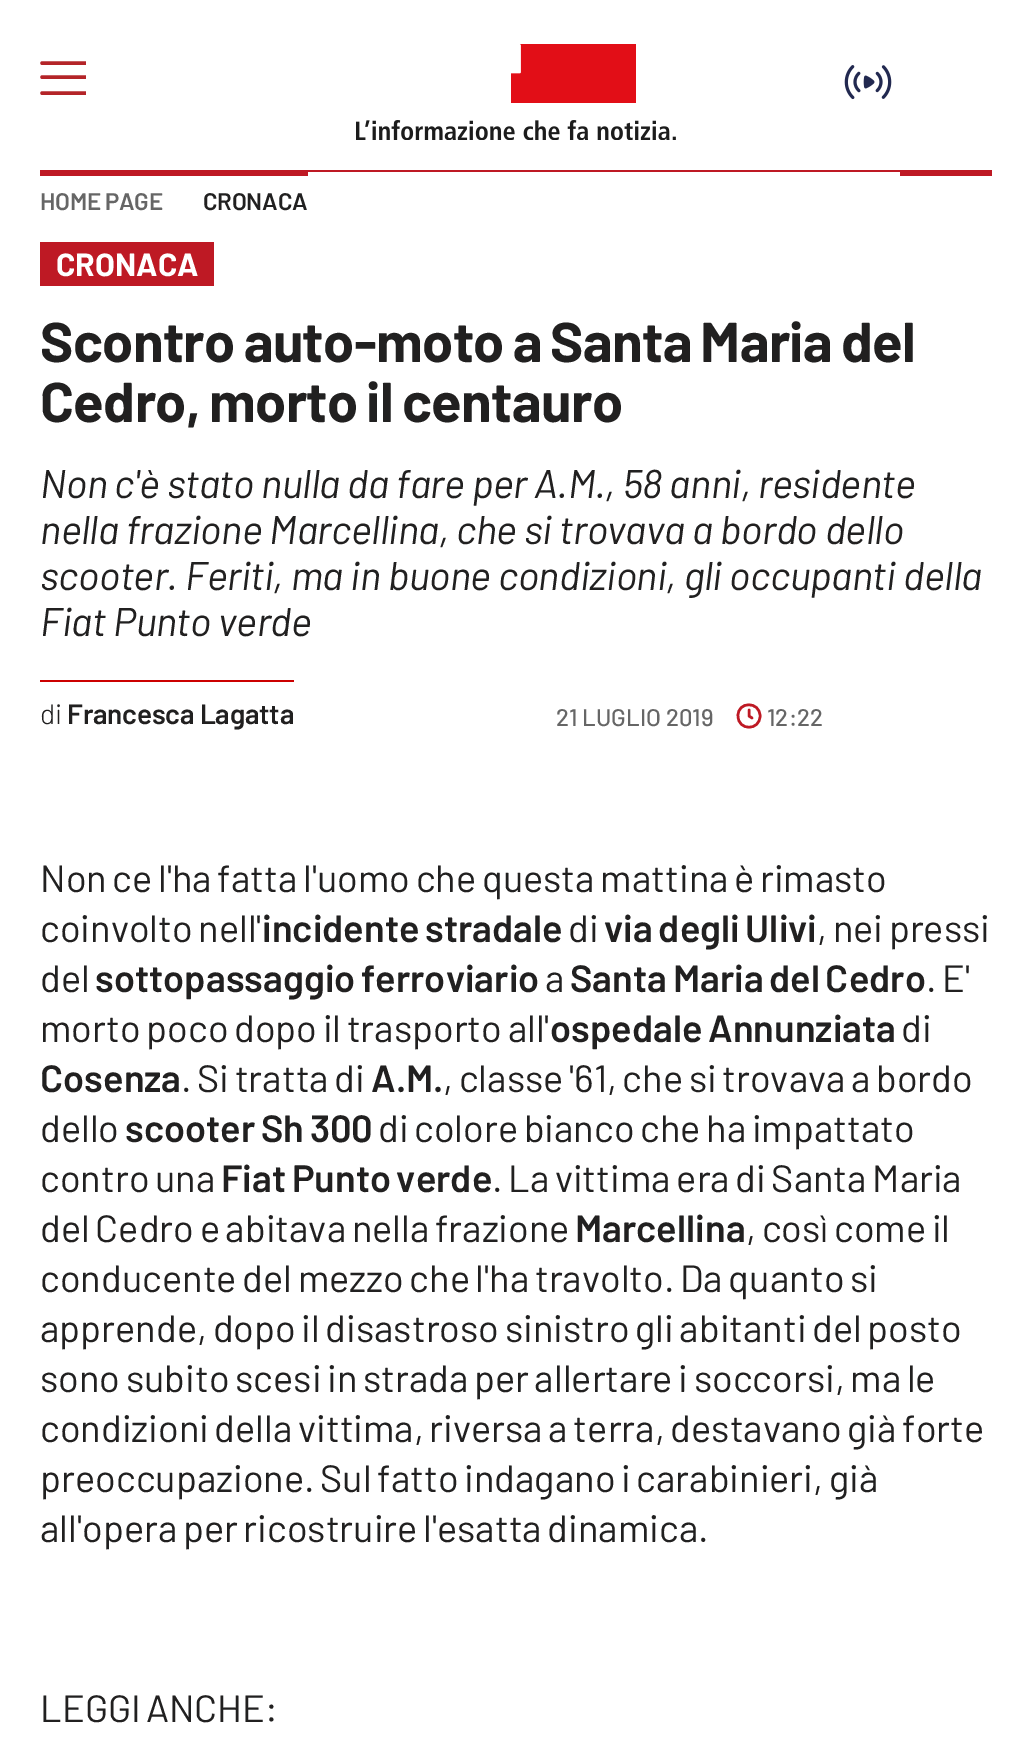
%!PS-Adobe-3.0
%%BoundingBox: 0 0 1032 1747
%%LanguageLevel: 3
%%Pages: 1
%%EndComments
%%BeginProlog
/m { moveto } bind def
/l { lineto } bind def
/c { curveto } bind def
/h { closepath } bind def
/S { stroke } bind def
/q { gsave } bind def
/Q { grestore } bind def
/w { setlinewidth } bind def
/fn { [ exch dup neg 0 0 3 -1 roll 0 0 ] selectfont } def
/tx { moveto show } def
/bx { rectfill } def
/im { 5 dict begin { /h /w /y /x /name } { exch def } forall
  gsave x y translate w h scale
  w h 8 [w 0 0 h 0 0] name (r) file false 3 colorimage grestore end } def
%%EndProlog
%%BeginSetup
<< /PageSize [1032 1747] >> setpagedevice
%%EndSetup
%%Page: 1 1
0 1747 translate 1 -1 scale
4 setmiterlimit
1 setgray
0 0 1032 1747 bx
(image0.raw) 511 44 125 59 im
(image1.raw) 356 120 320 20 im
(image2.raw) 844 65 48 35 im
0.745 0.098 0.141 setrgbcolor
900 172 92 4 bx
40 170 952 2 bx
q
40 56 46 46 rectclip
0.706 0.141 0.157 setrgbcolor
3.5 w
1 setlinecap
42 63 m 86 63 l 42 77 m 86 77 l 42 93 m 86 93 l S
Q
40 172 268 4 bx
/Barlow-SemiBold 24 fn
0.4 setgray
40 210 m -0.25 0 (HOME PAGE) ashow
0.129 0.125 0.125 setrgbcolor
203 210 m -0.25 0 (CRONACA) ashow
0.745 0.098 0.141 setrgbcolor
40 242 174 44 bx
/Barlow-Bold 32 fn
1 setgray
(CRONACA) 56 276 tx
/Barlow-Bold 56 fn
0.129 0.125 0.125 setrgbcolor
40 362 m -2 0 32 -0.6 0 (Scontro auto-moto a Santa Maria del) awidthshow
40 422 m -2 0 32 -0.6 0 (Cedro, morto il centauro) awidthshow
/Barlow-Italic 40 fn
40 498 m -0.4 0 (Non c'è stato nulla da fare per A.M., 58 anni, residente) ashow
40 544 m -0.4 0 (nella frazione Marcellina, che si trovava a bordo dello) ashow
40 590 m -0.4 0 (scooter. Feriti, ma in buone condizioni, gli occupanti della) ashow
40 636 m -0.4 0 (Fiat Punto verde) ashow
0.8 0 0 setrgbcolor
40 680 254 2 bx
/Barlow-Light 28 fn
0.129 0.125 0.125 setrgbcolor
40 724 m -0.4 0 (di) ashow
/Barlow-SemiBold 28 fn
67 724 m -0.25 0 (Francesca Lagatta) ashow
/Barlow-Medium 24 fn
0.4 setgray
(21 LUGLIO 2019) 556 726 tx
0.745 0.098 0.141 setrgbcolor
2.5 w
1 setlinecap
1 setlinejoin
749 710 m 749 716 l 752 718 l 760 716 m 760 731 738 731 738 716 c 737.5 701 760 701 760 716 c h S
0.4 setgray
(12:22) 767 726 tx
/Barlow-Regular 38 fn
0.129 0.125 0.125 setrgbcolor
40 892 m -2 0 32 (Non ce l'ha fatta l'uomo che questa mattina è rimasto) widthshow
40 942 m -2 0 32 (coinvolto nell') widthshow
/Barlow-SemiBold 38 fn
262 942 m -2 0 32 (incidente stradale) widthshow
/Barlow-Regular 38 fn
(di) 568 942 tx
/Barlow-SemiBold 38 fn
604 942 m -2 0 32 (via degli Ulivi) widthshow
/Barlow-Regular 38 fn
817 942 m -2 0 32 (, nei pressi) widthshow
(del) 40 992 tx
/Barlow-SemiBold 38 fn
95 992 m -2 0 32 (sottopassaggio ferroviario) widthshow
/Barlow-Regular 38 fn
(a) 545 992 tx
/Barlow-SemiBold 38 fn
570 992 m -2 0 32 (Santa Maria del Cedro) widthshow
/Barlow-Regular 38 fn
926 992 m -2 0 32 (. E') widthshow
40 1042 m -2 0 32 (morto poco dopo il trasporto all') widthshow
/Barlow-SemiBold 38 fn
550 1042 m -2 0 32 (ospedale Annunziata) widthshow
/Barlow-Regular 38 fn
(di) 901 1042 tx
/Barlow-SemiBold 38 fn
(Cosenza) 40 1092 tx
/Barlow-Regular 38 fn
181 1092 m -2 0 32 (. Si tratta di) widthshow
/Barlow-SemiBold 38 fn
(A.M.) 371 1092 tx
/Barlow-Regular 38 fn
443 1092 m -2 0 32 (, classe '61, che si trovava a bordo) widthshow
(dello) 40 1142 tx
/Barlow-SemiBold 38 fn
125 1142 m -2 0 32 (scooter Sh 300) widthshow
/Barlow-Regular 38 fn
378 1142 m -2 0 32 (di colore bianco che ha impattato) widthshow
40 1192 m -2 0 32 (contro una) widthshow
/Barlow-SemiBold 38 fn
221 1192 m -2 0 32 (Fiat Punto verde) widthshow
/Barlow-Regular 38 fn
492 1192 m -2 0 32 (. La vittima era di Santa Maria) widthshow
40 1242 m -2 0 32 (del Cedro e abitava nella frazione) widthshow
/Barlow-SemiBold 38 fn
(Marcellina) 575 1242 tx
/Barlow-Regular 38 fn
746 1242 m -2 0 32 (, così come il) widthshow
40 1292 m -2 0 32 (conducente del mezzo che l'ha travolto. Da quanto si) widthshow
40 1342 m -2 0 32 (apprende, dopo il disastroso sinistro gli abitanti del posto) widthshow
40 1392 m -2 0 32 (sono subito scesi in strada per allertare i soccorsi, ma le) widthshow
40 1442 m -2 0 32 (condizioni della vittima, riversa a terra, destavano già forte) widthshow
40 1492 m -2 0 32 (preoccupazione. Sul fatto indagano i carabinieri, già) widthshow
40 1542 m -2 0 32 (all'opera per ricostruire l'esatta dinamica.) widthshow
40 1722 m -3 0 32 (LEGGI ANCHE:) widthshow
showpage
%%EOF
